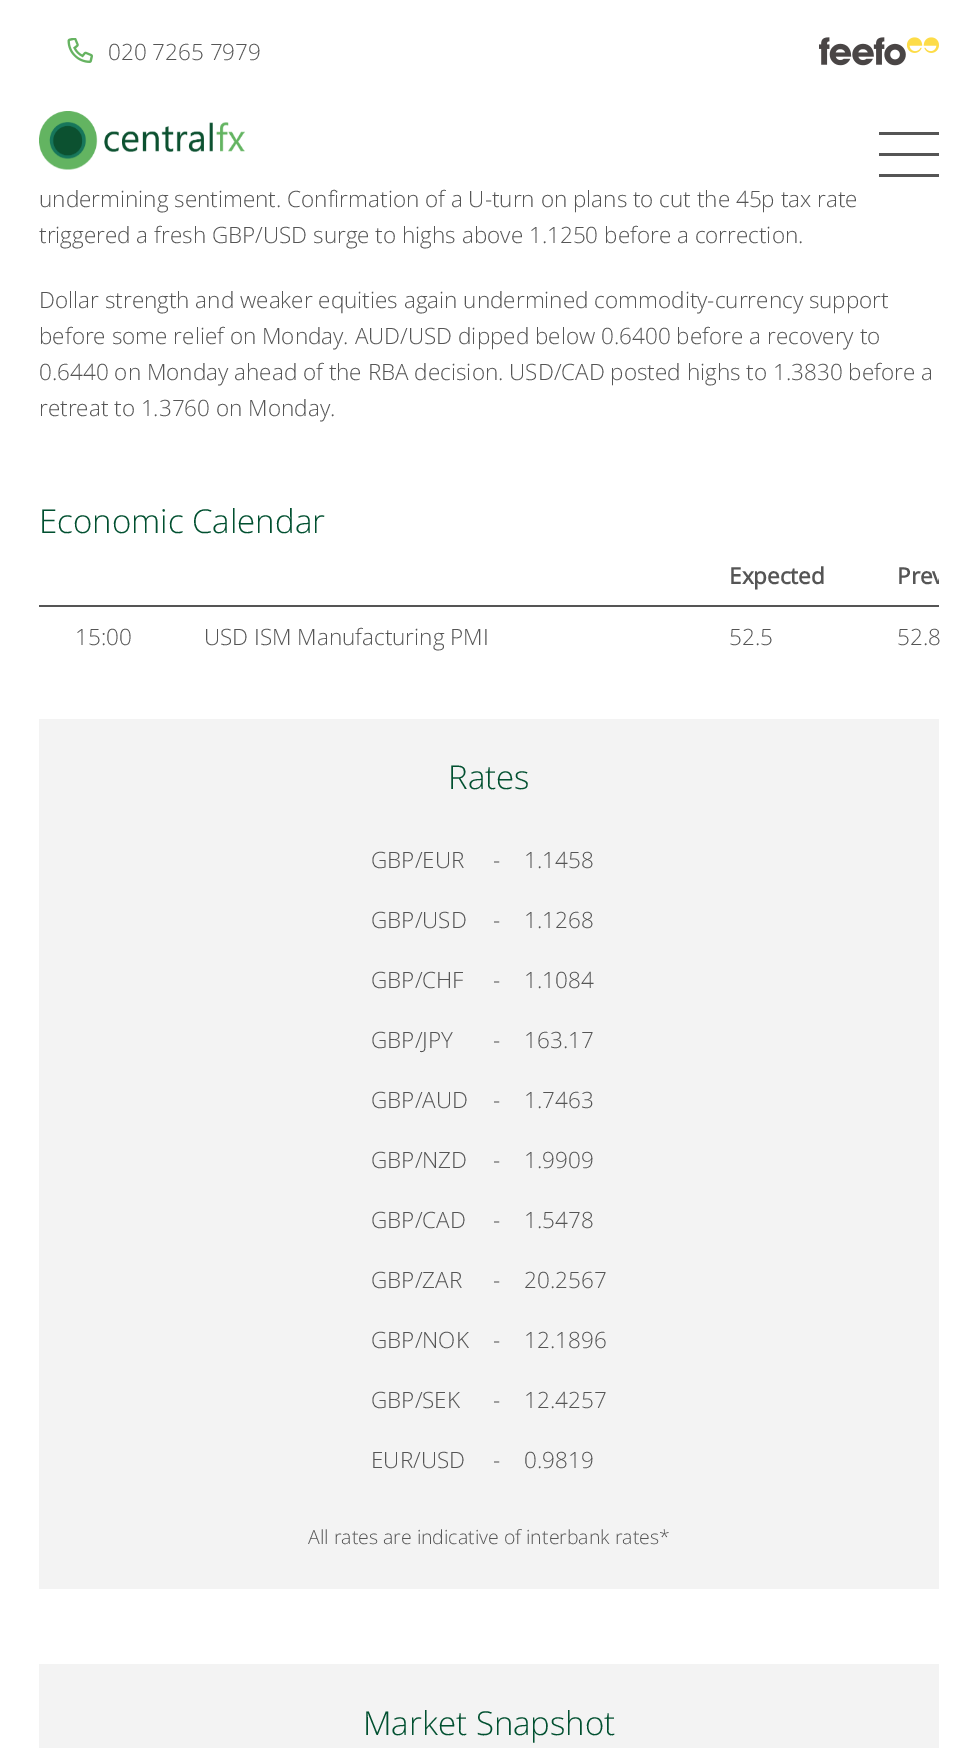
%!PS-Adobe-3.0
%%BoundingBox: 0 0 977 1748
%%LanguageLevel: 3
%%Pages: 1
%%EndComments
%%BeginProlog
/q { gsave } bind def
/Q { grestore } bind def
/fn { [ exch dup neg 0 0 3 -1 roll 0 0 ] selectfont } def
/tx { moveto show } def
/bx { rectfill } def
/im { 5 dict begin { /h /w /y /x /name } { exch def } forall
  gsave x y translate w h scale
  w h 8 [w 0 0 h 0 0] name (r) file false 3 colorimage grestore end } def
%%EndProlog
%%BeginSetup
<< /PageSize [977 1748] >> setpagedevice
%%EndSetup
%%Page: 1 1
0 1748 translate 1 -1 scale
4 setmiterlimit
1 setgray
0 0 977 1748 bx
(image0.raw) 67 38 26 25 im
/OpenSans-Light 22.5 fn
0.333 setgray
(020 7265 7979) 108 60 tx
(image1.raw) 819 37 120 29 im
879 153 60 3 bx
879 132 60 3 bx
879 174 60 3 bx
(image2.raw) 39 111 206 59 im
(undermining sentiment. Confirmation of a U-turn on plans to cut the 45p tax rate) 39 207 tx
(triggered a fresh GBP/USD surge to highs above 1.1250 before a correction.) 39 243 tx
(Dollar strength and weaker equities again undermined commodity-currency support) 39 308 tx
(before some relief on Monday. AUD/USD dipped below 0.6400 before a recovery to) 39 344 tx
(0.6440 on Monday ahead of the RBA decision. USD/CAD posted highs to 1.3830 before a) 39 380 tx
(retreat to 1.3760 on Monday.) 39 416 tx
/OpenSans-Light 33 fn
0.004 0.314 0.188 setrgbcolor
(Economic Calendar) 39 533 tx
/OpenSans-Bold 22.5 fn
0.333 setgray
(Expected) 729 584 tx
39 605 900 2 bx
q
39 545 900 121 rectclip
(Prev) 897 584 tx
Q
/OpenSans-Light 22.5 fn
(15:00) 75 645 tx
(USD ISM Manufacturing PMI) 204 645 tx
(52.5) 729 645 tx
(52.8) 897 645 tx
0.953 setgray
39 719 900 870 bx
/OpenSans-Light 33 fn
0.004 0.314 0.188 setrgbcolor
(Rates) 448 789 tx
/OpenSans-Light 22.5 fn
0.333 setgray
(GBP/EUR) 371 868 tx
(-) 493 868 tx
(1.1458) 524 868 tx
(GBP/USD) 371 928 tx
(-) 493 928 tx
(1.1268) 524 928 tx
(GBP/CHF) 371 988 tx
(-) 493 988 tx
(1.1084) 524 988 tx
(GBP/JPY) 371 1048 tx
(-) 493 1048 tx
(163.17) 524 1048 tx
(GBP/AUD) 371 1108 tx
(-) 493 1108 tx
(1.7463) 524 1108 tx
(GBP/NZD) 371 1168 tx
(-) 493 1168 tx
(1.9909) 524 1168 tx
(GBP/CAD) 371 1228 tx
(-) 493 1228 tx
(1.5478) 524 1228 tx
(GBP/ZAR) 371 1288 tx
(-) 493 1288 tx
(20.2567) 524 1288 tx
(GBP/NOK) 371 1348 tx
(-) 493 1348 tx
(12.1896) 524 1348 tx
(GBP/SEK) 371 1408 tx
(-) 493 1408 tx
(12.4257) 524 1408 tx
(EUR/USD) 371 1468 tx
(-) 493 1468 tx
(0.9819) 524 1468 tx
/OpenSans-Light 19.5 fn
(All rates are indicative of interbank rates*) 308 1544 tx
0.953 setgray
39 1664 900 84 bx
/OpenSans-Light 33 fn
0.004 0.314 0.188 setrgbcolor
(Market Snapshot) 363 1735 tx
showpage
%%EOF
